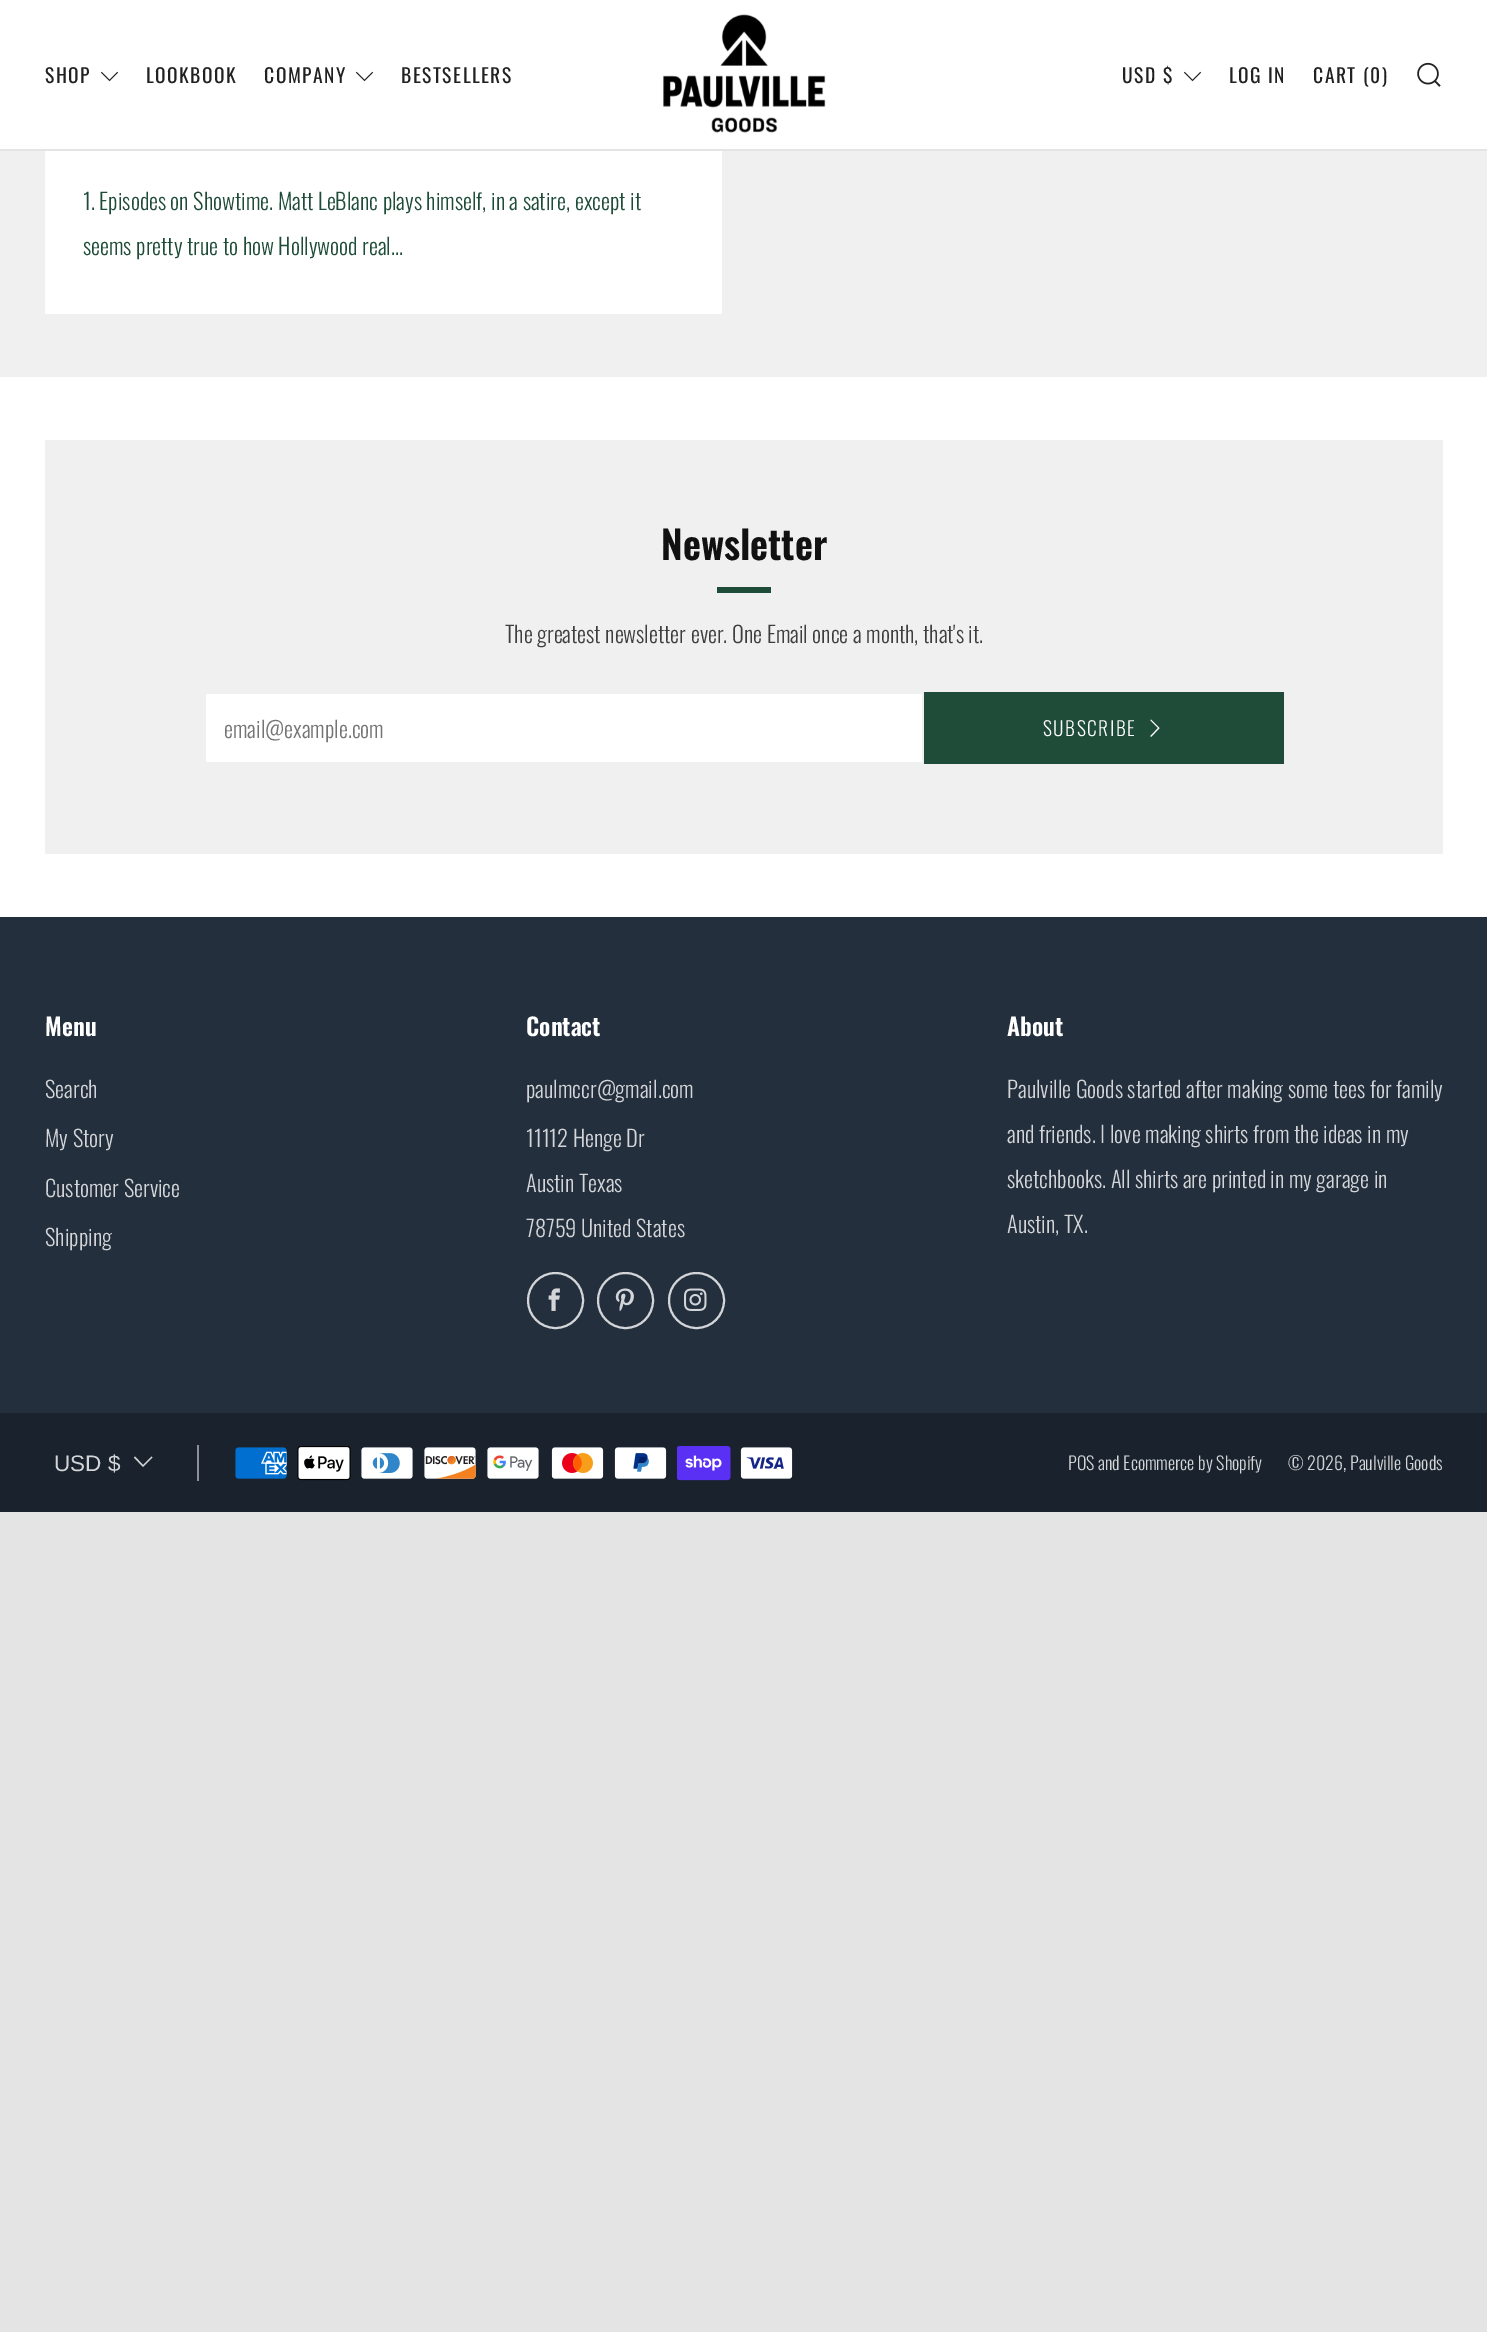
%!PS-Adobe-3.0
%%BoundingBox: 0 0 1487 2332
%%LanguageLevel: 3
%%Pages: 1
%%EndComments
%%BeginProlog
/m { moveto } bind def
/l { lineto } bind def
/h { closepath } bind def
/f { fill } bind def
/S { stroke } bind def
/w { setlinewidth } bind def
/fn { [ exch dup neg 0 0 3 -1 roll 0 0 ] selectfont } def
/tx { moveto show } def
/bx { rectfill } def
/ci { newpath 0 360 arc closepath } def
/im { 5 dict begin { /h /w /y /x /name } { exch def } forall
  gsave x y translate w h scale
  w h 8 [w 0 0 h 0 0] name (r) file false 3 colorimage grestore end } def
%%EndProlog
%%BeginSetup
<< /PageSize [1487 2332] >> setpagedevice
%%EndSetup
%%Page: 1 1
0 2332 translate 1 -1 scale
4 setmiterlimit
0.894 setgray
0 0 1487 2332 bx
1 setgray
0 377 1487 540 bx
0 0 1487 149 bx
(image0.raw) 663 14 163 119 im
/Oswald-Regular 19.5 fn
0.129 setgray
45 83 m 1.5 0 (SHOP) ashow
(image1.raw) 100 71 19 11 im
146 83 m 1.5 0 (LOOKBOOK) ashow
264 83 m 1.5 0 (COMPANY) ashow
(image1.raw) 355 71 19 11 im
401 83 m 1.5 0 (BESTSELLERS) ashow
1122 83 m 1.5 0 (USD $) ashow
(image1.raw) 1183 71 19 11 im
1229 83 m 1.5 0 (LOG IN) ashow
1313 83 m 1.5 0 (CART \(0\)) ashow
(image2.raw) 1417 62 24 25 im
0.941 setgray
0 151 1487 226 bx
1 setgray
45 151 677 163 bx
/Oswald-Light 22.5 fn
0.118 0.298 0.22 setrgbcolor
(1. Episodes on Showtime. Matt LeBlanc plays himself, in a satire, except it) 83 210 tx
(seems pretty true to how Hollywood real...) 83 255 tx
0.941 setgray
45 440 1398 414 bx
/Oswald-SemiBold 39 fn
0.067 setgray
(Newsletter) 661 560 tx
0.118 0.298 0.22 setrgbcolor
717 587 54 6 bx
/Oswald-Light 22.5 fn
0.243 setgray
(The greatest newsletter ever. One Email once a month, that's it.) 505 643 tx
1 setgray
206 694 716 68 bx
0.459 setgray
(email@example.com) 224 738 tx
0.118 0.298 0.22 setrgbcolor
924 692 360 72 bx
/Oswald-Light 19.5 fn
1 setgray
1043 736 m 1.5 0 (SUBSCRIBE) ashow
1150.5 736 m 1151 737 l 1159.5 728 l 1151 719.5 l 1150.5 720.5 l 1158 728 l h f
0.137 0.184 0.239 setrgbcolor
0 917 1487 496 bx
/Oswald-SemiBold 24 fn
1 setgray
(Menu) 45 1036 tx
/Oswald-Light 22.5 fn
0.827 0.835 0.847 setrgbcolor
(Search) 45 1098 tx
(My Story) 45 1147 tx
(Customer Service) 45 1197 tx
(Shipping) 45 1246 tx
/Oswald-SemiBold 24 fn
1 setgray
(Contact) 526 1036 tx
/Oswald-Light 22.5 fn
0.827 0.835 0.847 setrgbcolor
(paulmccr@gmail.com) 526 1098 tx
(11112 Henge Dr) 526 1147 tx
(Austin Texas) 526 1192 tx
(78759 United States) 526 1237 tx
2 w
555.5 1300.5 27.5 ci S
(image3.raw) 548 1288 12 23 im
625.5 1300.5 27.5 ci S
(image4.raw) 615 1288 19 23 im
696.5 1300.5 27.5 ci S
(image5.raw) 684 1288 23 23 im
/Oswald-SemiBold 24 fn
1 setgray
(About) 1007 1036 tx
/Oswald-Light 22.5 fn
0.827 0.835 0.847 setrgbcolor
(Paulville Goods started after making some tees for family) 1007 1098 tx
(and friends. I love making shirts from the ideas in my) 1007 1143 tx
(sketchbooks. All shirts are printed in my garage in) 1007 1188 tx
(Austin, TX.) 1007 1233 tx
0.102 0.137 0.176 setrgbcolor
0 1413 1487 99 bx
/LiberationSans-Regular 22.5 fn
0.827 0.835 0.847 setrgbcolor
(USD $) 54 1471 tx
0.82 0.827 0.835 setrgbcolor
135 1456.5 m 134 1457.5 l 143 1467 l 152.5 1457.5 l 151.5 1456.5 l 143 1465 l h f
0.553 0.569 0.588 setrgbcolor
197 1445 2 36 bx
(image6.raw) 235 1447 52 32 im
(image7.raw) 297 1446 54 35 im
(image8.raw) 361 1447 52 32 im
(image9.raw) 424 1447 52 32 im
(image10.raw) 487 1447 52 32 im
(image11.raw) 551 1447 53 32 im
(image12.raw) 614 1447 53 32 im
(image13.raw) 677 1446 54 35 im
(image14.raw) 740 1447 53 32 im
/Oswald-Light 18 fn
0.827 0.835 0.847 setrgbcolor
(POS and Ecommerce by Shopify) 1068 1470 tx
(© 2026, Paulville Goods) 1288 1470 tx
showpage
%%EOF
